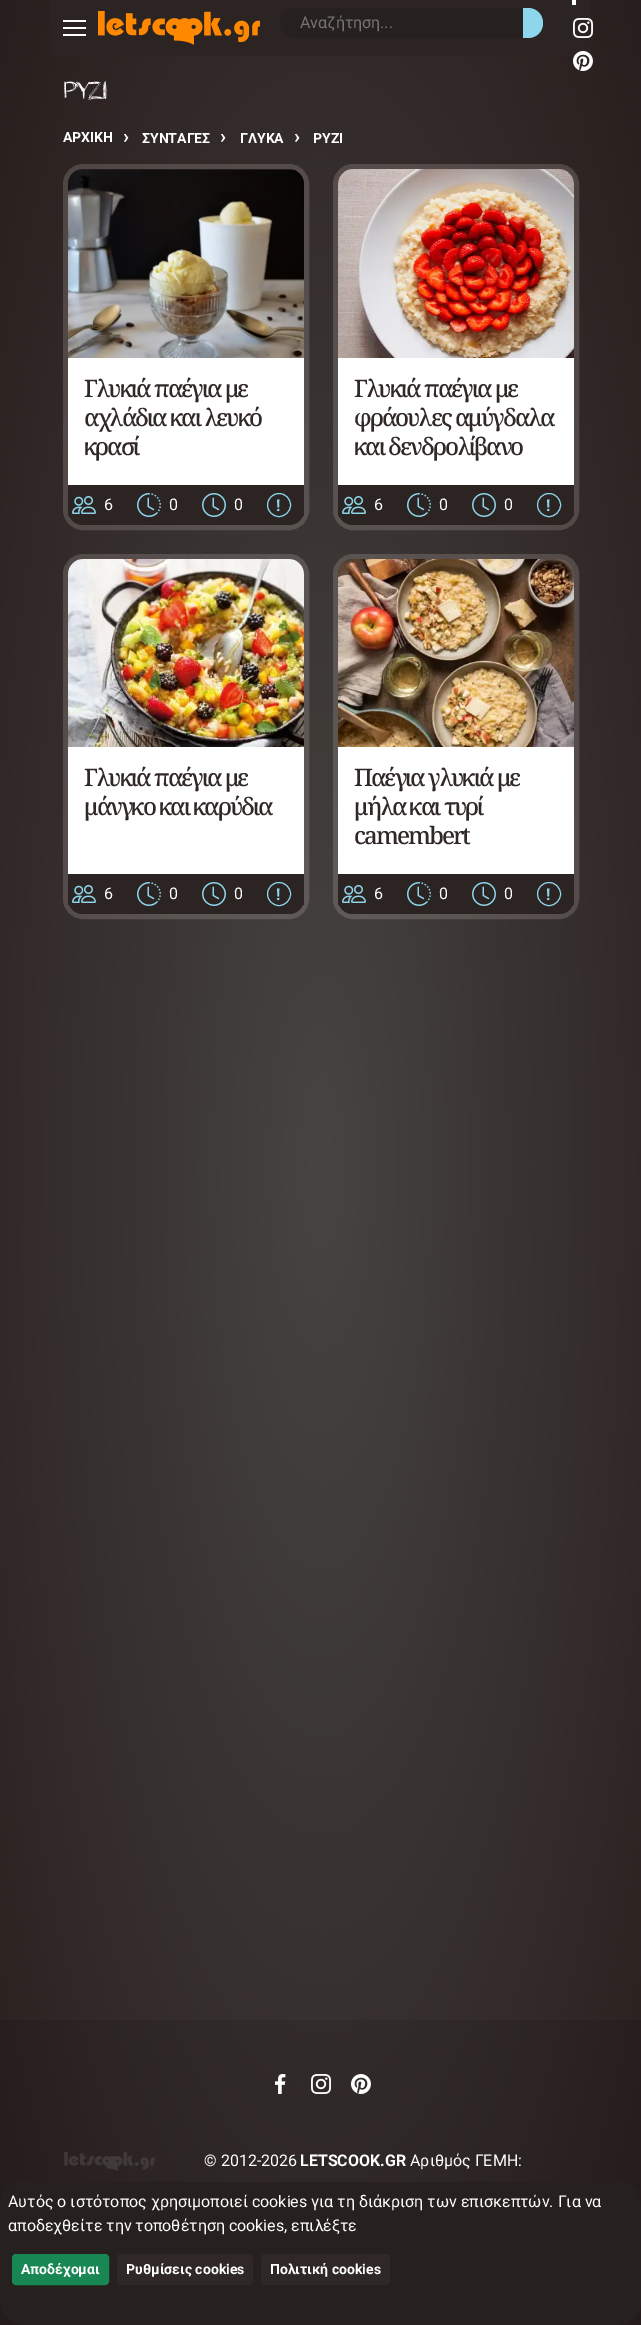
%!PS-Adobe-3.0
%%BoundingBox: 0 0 641 2325
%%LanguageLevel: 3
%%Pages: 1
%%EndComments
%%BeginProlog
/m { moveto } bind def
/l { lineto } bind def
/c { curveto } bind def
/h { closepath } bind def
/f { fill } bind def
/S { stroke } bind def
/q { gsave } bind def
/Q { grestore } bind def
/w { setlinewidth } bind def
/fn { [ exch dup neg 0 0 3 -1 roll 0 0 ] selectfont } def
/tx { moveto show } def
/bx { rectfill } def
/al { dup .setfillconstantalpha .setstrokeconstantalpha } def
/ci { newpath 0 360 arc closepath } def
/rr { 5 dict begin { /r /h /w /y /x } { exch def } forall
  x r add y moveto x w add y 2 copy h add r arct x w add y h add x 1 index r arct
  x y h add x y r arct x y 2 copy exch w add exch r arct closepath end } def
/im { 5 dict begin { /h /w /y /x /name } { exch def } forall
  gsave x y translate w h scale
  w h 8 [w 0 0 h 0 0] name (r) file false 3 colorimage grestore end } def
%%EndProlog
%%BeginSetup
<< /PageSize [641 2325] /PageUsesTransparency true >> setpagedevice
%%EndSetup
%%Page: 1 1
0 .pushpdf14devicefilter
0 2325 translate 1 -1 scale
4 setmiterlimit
1 setgray
0 0 641 2325 bx
q 0 0 m 641 0 l 641 2020 l 0 2020 l h clip newpath 321 1163 translate 453 1644 scale
<< /ShadingType 3 /ColorSpace /DeviceRGB /Coords [0 0 0 0 0 1] /Extend [true true] /Function << /FunctionType 2 /Domain [0 1] /C0 [0.278 0.267 0.259] /C1 [0.157 0.118 0.114] /N 1 >> >> shfill Q
q 0 2020 m 641 2020 l 641 2325 l 0 2325 l h clip newpath 321 1163 translate 453 1644 scale
<< /ShadingType 3 /ColorSpace /DeviceRGB /Coords [0 0 0 0 0 1] /Extend [true true] /Function << /FunctionType 2 /Domain [0 1] /C0 [0.251 0.239 0.231] /C1 [0.141 0.106 0.102] /N 1 >> >> shfill Q
0.169 0.141 0.137 setrgbcolor
51 0 540 56 bx
1 setgray
63 27 23 2 bx
63 20 23 2 bx
63 34 23 2 bx
(image0.raw) 98 11 162 34 im
0.149 0.125 0.122 setrgbcolor
295 8 m 523 8 l 523 38 l 295 38 l 286.5 38 280 31.5 280 23 c 280 14.5 286.5 8 295 8 c h f
/Roboto-Regular 16 fn
0.459 setgray
(Αναζήτηση...) 300 28 tx
0.553 0.839 0.922 setrgbcolor
523 8 m 528 8 l 536.5 8 543 14.5 543 23 c 543 31.5 536.5 38 528 38 c 523 38 l h f
1 setgray
572 0 4 5 bx
(image1.raw) 573 18 20 20 im
(image2.raw) 573 51 20 20 im
/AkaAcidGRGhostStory-Medium 32 fn
63 99 m -2 0 (ΡΥΖΙ) ashow
/Roboto-Bold 14 fn
(ΑΡΧΙΚΗ) 63 142 tx
/Roboto-Bold 20 fn
(›) 123 143 tx
/Roboto-Bold 14 fn
(ΣΥΝΤΑΓΕΣ) 142 143 tx
/Roboto-Bold 20 fn
(›) 220 143 tx
/Roboto-Bold 14 fn
(ΓΛΥΚΑ) 240 143 tx
/Roboto-Bold 20 fn
(›) 294 143 tx
/Roboto-Bold 14 fn
(ΡΥΖΙ) 313 143 tx
0.2 al
0.843 0.792 0.776 setrgbcolor
5 w
65.5 166.5 241 361 17.5 rr S
1 al
(image3.raw) 68 169 236 189 im
1 setgray
68 358 236 127 bx
/NotoSerif-Medium 24 fn
0.188 0.157 0.153 setrgbcolor
84 397 m -2 0 (Γλυκιά παέγια με) ashow
84 426 m -2 0 (αχλάδια και λευκό) ashow
84 455 m -2 0 (κρασί) ashow
0.169 0.141 0.137 setrgbcolor
68 485 m 304 485 l 304 510 l 304 518.5 297.5 525 289 525 c 83 525 l 74.5 525 68 518.5 68 510 c h f
q
68 169 236 356 15 rr clip newpath
68 493 45 24 bx
Q
(image4.raw) 72 496 24 18 im
/Roboto-Regular 16 fn
1 setgray
(6) 104 510 tx
(image5.raw) 137 493 24 24 im
(0) 169 510 tx
(image6.raw) 202 493 24 24 im
(0) 234 510 tx
q
68 169 236 356 15 rr clip newpath
0.169 0.141 0.137 setrgbcolor
259 493 45 24 bx
Q
0.553 0.839 0.922 setrgbcolor
1 w
279 505 11.5 ci S
/Roboto-Bold 16 fn
(!) 276 511 tx
0.2 al
0.843 0.792 0.776 setrgbcolor
5 w
335.5 166.5 241 361 17.5 rr S
1 al
(image7.raw) 338 169 236 189 im
1 setgray
338 358 236 127 bx
/NotoSerif-Medium 24 fn
0.188 0.157 0.153 setrgbcolor
354 397 m -2 0 (Γλυκιά παέγια με) ashow
354 426 m -2 0 (φράουλες αμύγδαλα) ashow
354 455 m -2 0 (και δενδρολίβανο) ashow
0.169 0.141 0.137 setrgbcolor
338 485 m 574 485 l 574 510 l 574 518.5 567.5 525 559 525 c 353 525 l 344.5 525 338 518.5 338 510 c h f
q
338 169 236 356 15 rr clip newpath
338 493 45 24 bx
Q
(image4.raw) 342 496 24 18 im
/Roboto-Regular 16 fn
1 setgray
(6) 374 510 tx
(image5.raw) 407 493 24 24 im
(0) 439 510 tx
(image6.raw) 472 493 24 24 im
(0) 504 510 tx
q
338 169 236 356 15 rr clip newpath
0.169 0.141 0.137 setrgbcolor
529 493 45 24 bx
Q
0.553 0.839 0.922 setrgbcolor
1 w
549 505 11.5 ci S
/Roboto-Bold 16 fn
(!) 546 511 tx
0.2 al
0.843 0.792 0.776 setrgbcolor
5 w
65.5 556.5 241 360 17.5 rr S
1 al
(image8.raw) 68 559 236 188 im
1 setgray
68 747 236 127 bx
/NotoSerif-Medium 24 fn
0.188 0.157 0.153 setrgbcolor
84 786 m -2 0 (Γλυκιά παέγια με) ashow
84 815 m -2 0 (μάνγκο και καρύδια) ashow
0.169 0.141 0.137 setrgbcolor
68 874 m 304 874 l 304 899 l 304 907.5 297.5 914 289 914 c 83 914 l 74.5 914 68 907.5 68 899 c h f
q
68 559 236 355 15 rr clip newpath
68 882 45 24 bx
Q
(image4.raw) 72 885 24 18 im
/Roboto-Regular 16 fn
1 setgray
(6) 104 899 tx
(image5.raw) 137 882 24 24 im
(0) 169 899 tx
(image6.raw) 202 882 24 24 im
(0) 234 899 tx
q
68 559 236 355 15 rr clip newpath
0.169 0.141 0.137 setrgbcolor
259 882 45 24 bx
Q
0.553 0.839 0.922 setrgbcolor
1 w
279 894 11.5 ci S
/Roboto-Bold 16 fn
(!) 276 900 tx
0.2 al
0.843 0.792 0.776 setrgbcolor
5 w
335.5 556.5 241 360 17.5 rr S
1 al
(image9.raw) 338 559 236 188 im
1 setgray
338 747 236 127 bx
/NotoSerif-Medium 24 fn
0.188 0.157 0.153 setrgbcolor
354 786 m -2 0 (Παέγια γλυκιά με) ashow
354 815 m -2 0 (μήλα και τυρί) ashow
354 844 m -2 0 (camembert) ashow
0.169 0.141 0.137 setrgbcolor
338 874 m 574 874 l 574 899 l 574 907.5 567.5 914 559 914 c 353 914 l 344.5 914 338 907.5 338 899 c h f
q
338 559 236 355 15 rr clip newpath
338 882 45 24 bx
Q
(image4.raw) 342 885 24 18 im
/Roboto-Regular 16 fn
1 setgray
(6) 374 899 tx
(image5.raw) 407 882 24 24 im
(0) 439 899 tx
(image6.raw) 472 882 24 24 im
(0) 504 899 tx
q
338 559 236 355 15 rr clip newpath
0.169 0.141 0.137 setrgbcolor
529 882 45 24 bx
Q
0.553 0.839 0.922 setrgbcolor
1 w
549 894 11.5 ci S
/Roboto-Bold 16 fn
(!) 546 900 tx
(image10.raw) 275 2074 11 20 im
(image11.raw) 311 2074 20 20 im
(image12.raw) 351 2074 20 20 im
(image13.raw) 64 2152 91 19 im
/Roboto-Regular 16 fn
1 setgray
(© 2012-2026) 204 2166 tx
/Roboto-Bold 16 fn
(LETSCOOK.GR) 300 2166 tx
/Roboto-Regular 16 fn
(Αριθμός ΓΕΜΗ:) 410 2166 tx
0.149 0.125 0.122 setrgbcolor
0 2182 641 143 24 rr f
1 setgray
(Αυτός ο ιστότοπος χρησιμοποιεί cookies για τη διάκριση των επισκεπτών. Για να) 8 2207 tx
(αποδεχθείτε την τοποθέτηση cookies, επιλέξτε) 8 2231 tx
0.098 0.529 0.329 setrgbcolor
12.5 2254.5 96 30 3.5 rr q f Q
S
/Roboto-Bold 14 fn
1 setgray
(Αποδέχομαι) 21 2274 tx
0.188 0.157 0.153 setrgbcolor
117 2254 136 31 4 rr f
1 setgray
(Ρυθμίσεις cookies) 126 2274 tx
0.188 0.157 0.153 setrgbcolor
261 2254 129 31 4 rr f
1 setgray
(Πολιτική cookies) 270 2274 tx
.poppdf14devicefilter showpage
%%EOF
